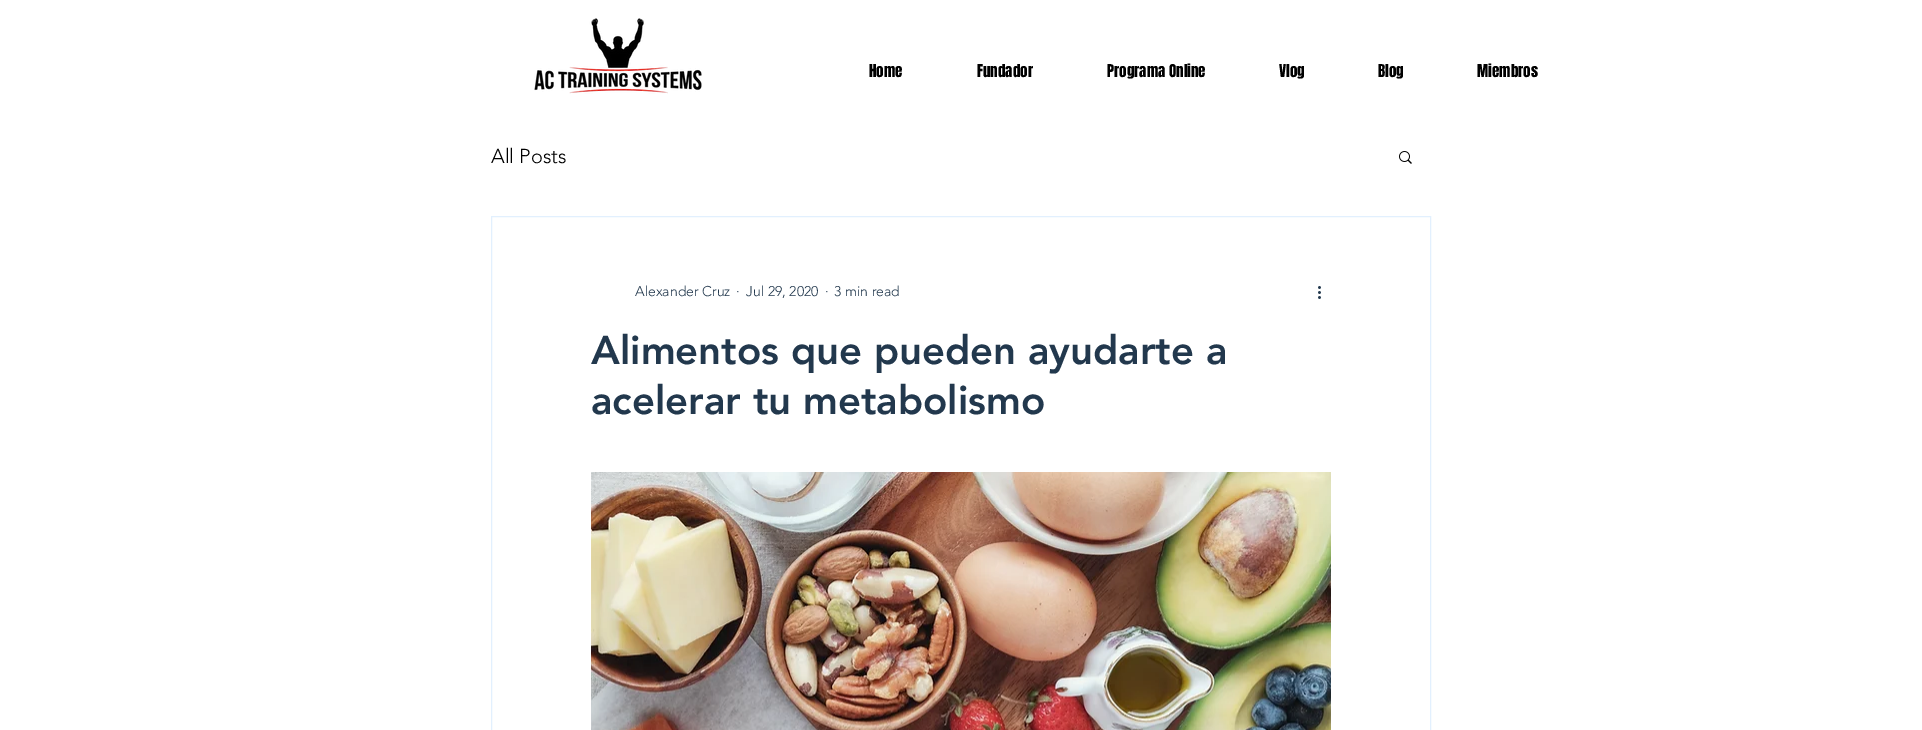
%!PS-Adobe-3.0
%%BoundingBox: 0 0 1922 730
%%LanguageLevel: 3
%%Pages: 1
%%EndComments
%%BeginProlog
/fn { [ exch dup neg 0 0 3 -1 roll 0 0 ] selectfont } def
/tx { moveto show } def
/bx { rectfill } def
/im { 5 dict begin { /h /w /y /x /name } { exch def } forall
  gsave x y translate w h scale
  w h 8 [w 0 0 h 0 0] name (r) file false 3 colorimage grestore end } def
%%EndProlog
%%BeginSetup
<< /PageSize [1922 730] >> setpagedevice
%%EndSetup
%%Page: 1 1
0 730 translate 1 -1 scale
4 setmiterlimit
1 setgray
0 0 1922 730 bx
(image0.raw) 534 18 168 76 im
/Anton-Regular 15 fn
0 setgray
(Home) 869 77 tx
(Fundador) 977 77 tx
(Programa Online) 1107 77 tx
(Vlog) 1279 77 tx
(Blog) 1378 77 tx
(Miembros) 1477 77 tx
/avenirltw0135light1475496-Light 20 fn
(All Posts) 491 163 tx
(image1.raw) 1399 151 13 13 im
0.886 0.941 0.996 setrgbcolor
491.5 216.5 939 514 rectstroke
/avenirltw0135light1475496-Light 14 fn
0.133 0.22 0.302 setrgbcolor
(Alexander Cruz) 635 296 tx
(·) 736 296 tx
(Jul 29, 2020) 746 296 tx
(·) 825 296 tx
(3 min read) 834 296 tx
(image2.raw) 1318 286 3 13 im
/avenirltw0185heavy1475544-Black 40 fn
(Alimentos que pueden ayudarte a) 591 364 tx
(acelerar tu metabolismo) 591 414 tx
(image3.raw) 591 472 740 258 im
showpage
%%EOF
